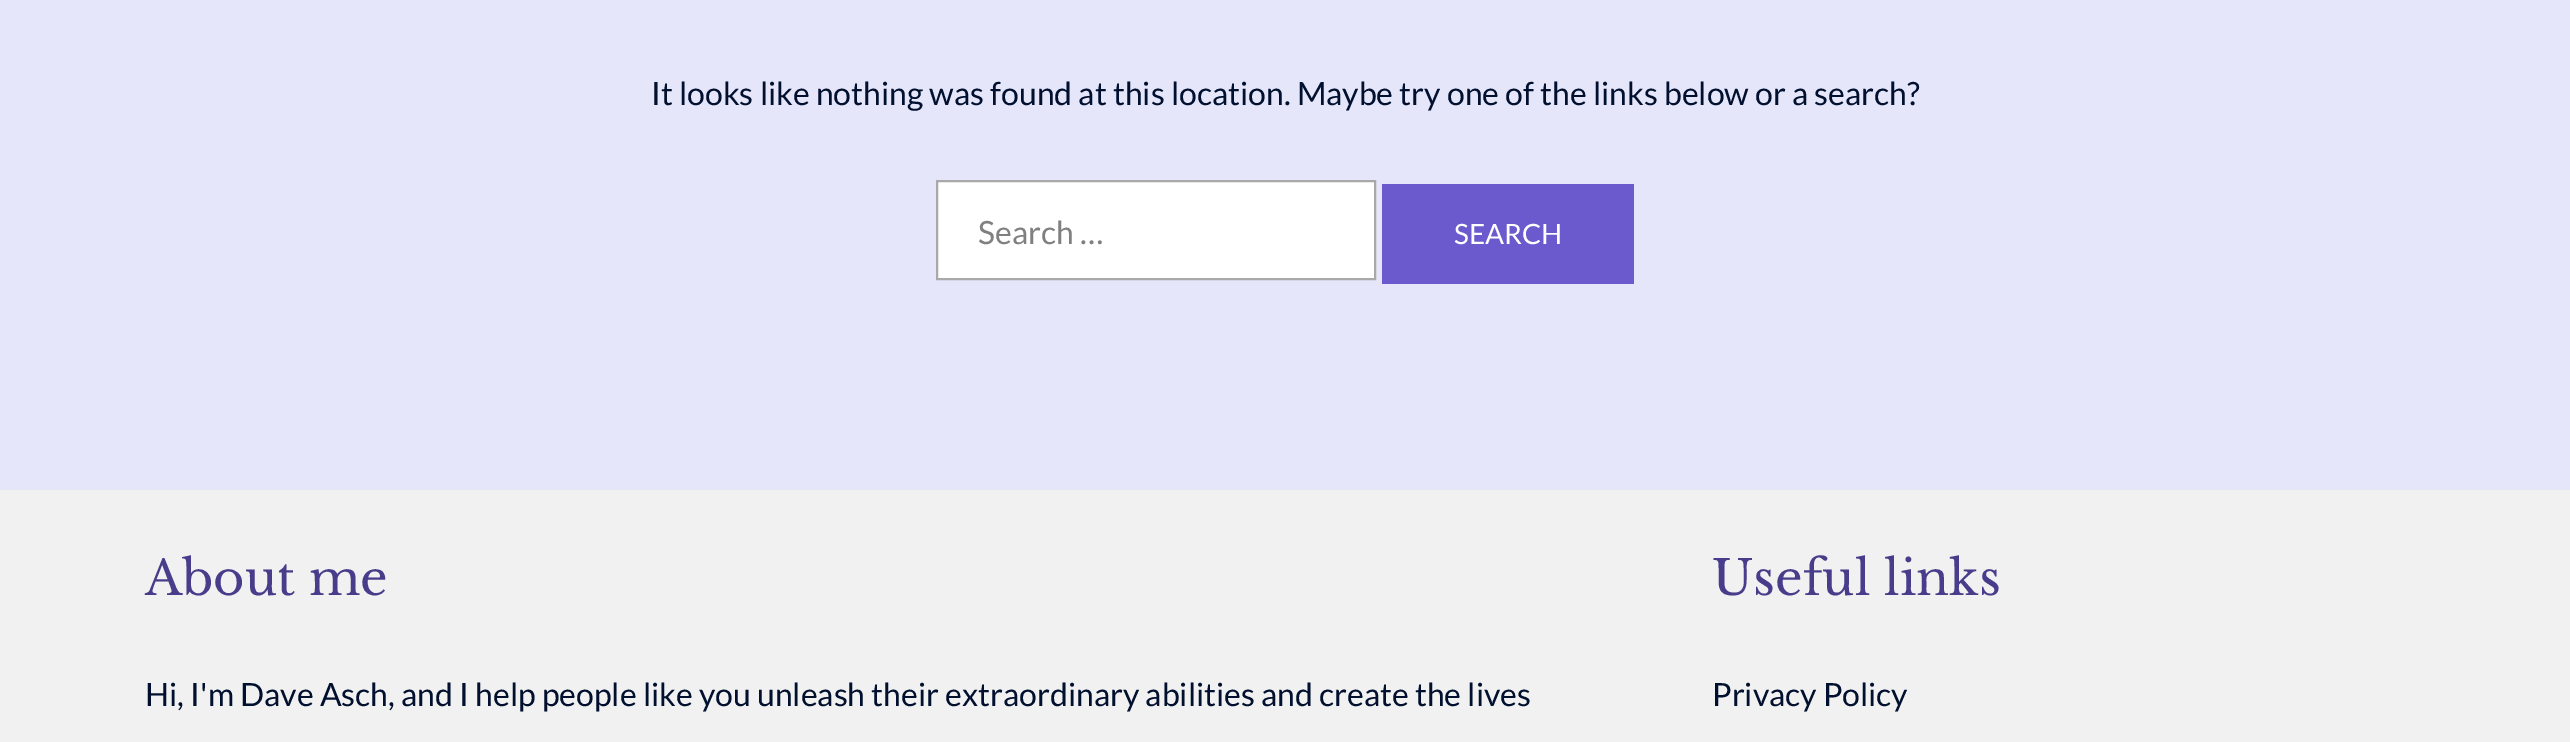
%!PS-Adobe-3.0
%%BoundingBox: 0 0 2570 742
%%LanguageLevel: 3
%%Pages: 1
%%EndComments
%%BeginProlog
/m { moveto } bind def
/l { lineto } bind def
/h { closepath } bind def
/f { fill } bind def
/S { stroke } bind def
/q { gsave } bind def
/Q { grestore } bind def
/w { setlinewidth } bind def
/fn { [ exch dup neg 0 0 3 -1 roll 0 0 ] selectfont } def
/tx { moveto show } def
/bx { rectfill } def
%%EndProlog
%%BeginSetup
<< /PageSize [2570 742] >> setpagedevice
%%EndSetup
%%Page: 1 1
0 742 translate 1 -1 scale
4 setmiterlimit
0.902 0.902 0.98 setrgbcolor
0 0 2570 742 bx
/Lato-Regular 32 fn
0 0.063 0.18 setrgbcolor
(It looks like nothing was found at this location. Maybe try one of the links below or a search?) 651 105 tx
1 setgray
937 181 m 1375 181 l 1375 279 l 937 279 l h q f Q
0.663 setgray
2 w
S
0.502 setgray
(Search …) 978 244 tx
0.416 0.353 0.804 setrgbcolor
1382 184 252 100 bx
/Lato-Regular 28 fn
1 setgray
(SEARCH) 1454 244 tx
0.945 setgray
0 490 2570 252 bx
/LibreBaskerville-Regular 48 fn
0.282 0.239 0.545 setrgbcolor
(About me) 145 595 tx
/Lato-Regular 32 fn
0 0.063 0.18 setrgbcolor
(Hi, I'm Dave Asch, and I help people like you unleash their extraordinary abilities and create the lives) 145 706 tx
/LibreBaskerville-Regular 48 fn
0.282 0.239 0.545 setrgbcolor
(Useful links) 1712 595 tx
/Lato-Regular 32 fn
0 0.063 0.18 setrgbcolor
(Privacy Policy) 1712 706 tx
showpage
%%EOF
